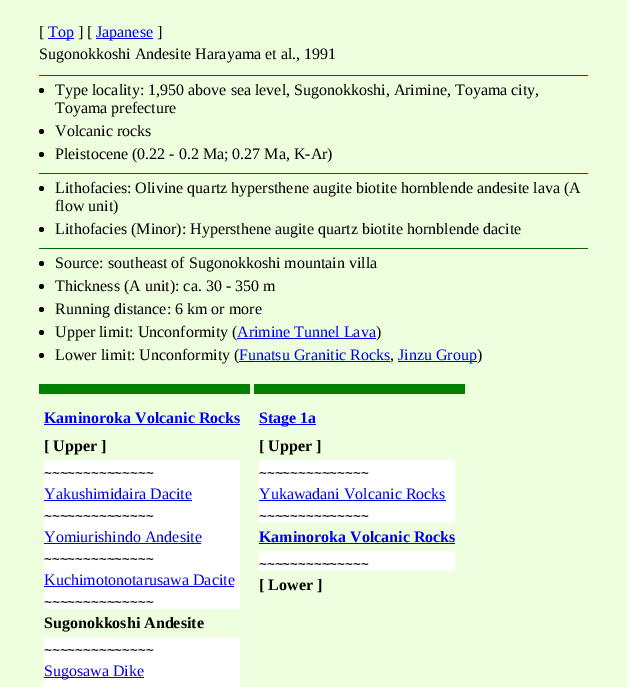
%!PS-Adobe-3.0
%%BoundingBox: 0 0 627 687
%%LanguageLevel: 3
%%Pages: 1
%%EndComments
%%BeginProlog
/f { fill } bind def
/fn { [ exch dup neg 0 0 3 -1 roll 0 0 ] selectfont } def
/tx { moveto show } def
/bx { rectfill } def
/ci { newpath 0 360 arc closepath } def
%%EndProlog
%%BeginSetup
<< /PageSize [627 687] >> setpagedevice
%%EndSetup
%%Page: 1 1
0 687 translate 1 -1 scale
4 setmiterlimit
0.933 1 0.867 setrgbcolor
0 0 627 687 bx
/LiberationSerif-Regular 16 fn
0 setgray
([) 39 37 tx
0 0 0.933 setrgbcolor
48 38 26 1 bx
(Top) 48 37 tx
0 setgray
(] [) 78 37 tx
0 0 0.933 setrgbcolor
96 38 57 1 bx
(Japanese) 96 37 tx
0 setgray
(]) 157 37 tx
(Sugonokkoshi Andesite Harayama et al., 1991) 39 59 tx
0 0.4 0 setrgbcolor
39 75 549 1 bx
0 setgray
41.5 90.5 2.5 ci f
(Type locality: 1,950 above sea level, Sugonokkoshi, Arimine, Toyama city,) 55 95 tx
(Toyama prefecture) 55 113 tx
41.5 131.5 2.5 ci f
(Volcanic rocks) 55 136 tx
41.5 154.5 2.5 ci f
(Pleistocene \(0.22 - 0.2 Ma; 0.27 Ma, K-Ar\)) 55 159 tx
0 0.4 0 setrgbcolor
39 173 549 1 bx
0 setgray
41.5 188.5 2.5 ci f
(Lithofacies: Olivine quartz hypersthene augite biotite hornblende andesite lava \(A) 55 193 tx
(flow unit\)) 55 211 tx
41.5 229.5 2.5 ci f
(Lithofacies \(Minor\): Hypersthene augite quartz biotite hornblende dacite) 55 234 tx
0 0.4 0 setrgbcolor
39 248 549 1 bx
0 setgray
41.5 263.5 2.5 ci f
(Source: southeast of Sugonokkoshi mountain villa) 55 268 tx
41.5 286.5 2.5 ci f
(Thickness \(A unit\): ca. 30 - 350 m) 55 291 tx
41.5 309.5 2.5 ci f
(Running distance: 6 km or more) 55 314 tx
41.5 332.5 2.5 ci f
(Upper limit: Unconformity \() 55 337 tx
0 0 0.933 setrgbcolor
(Arimine Tunnel Lava) 237 337 tx
237 338 139 1 bx
0 setgray
(\)) 376 337 tx
41.5 355.5 2.5 ci f
(Lower limit: Unconformity \() 55 360 tx
0 0 0.933 setrgbcolor
(Funatsu Granitic Rocks) 239 360 tx
239 361 151 1 bx
398 361 79 1 bx
(Jinzu Group) 398 360 tx
0 setgray
(\)) 477 360 tx
(,) 390 360 tx
0 0.502 0 setrgbcolor
39 384 211 10 bx
1 setgray
44 460 196 227 bx
/LiberationSerif-Bold 16 fn
0 0 0.933 setrgbcolor
(Kaminoroka Volcanic Rocks) 44 423 tx
44 424 196 1 bx
0 setgray
([ Upper ]) 44 451 tx
/DejaVuSansMono-Regular 13 fn
(~~~~~~~~~~~~~~) 44 477 tx
/LiberationSerif-Regular 16 fn
0 0 0.933 setrgbcolor
(Yakushimidaira Dacite) 44 499 tx
44 500 148 1 bx
/DejaVuSansMono-Regular 13 fn
0 setgray
(~~~~~~~~~~~~~~) 44 520 tx
/LiberationSerif-Regular 16 fn
0 0 0.933 setrgbcolor
(Yomiurishindo Andesite) 44 542 tx
44 543 157 1 bx
/DejaVuSansMono-Regular 13 fn
0 setgray
(~~~~~~~~~~~~~~) 44 563 tx
/LiberationSerif-Regular 16 fn
0 0 0.933 setrgbcolor
(Kuchimotonotarusawa Dacite) 44 585 tx
44 586 190 1 bx
/DejaVuSansMono-Regular 13 fn
0 setgray
(~~~~~~~~~~~~~~) 44 606 tx
0.933 1 0.867 setrgbcolor
44 609 196 28 bx
/LiberationSerif-Bold 16 fn
0 setgray
(Sugonokkoshi Andesite) 44 628 tx
/DejaVuSansMono-Regular 13 fn
(~~~~~~~~~~~~~~) 44 654 tx
0 0 0.933 setrgbcolor
44 677 100 1 bx
/LiberationSerif-Regular 16 fn
(Sugosawa Dike) 44 676 tx
0 0.502 0 setrgbcolor
254 384 211 10 bx
1 setgray
259 460 196 111 bx
0 0 0.933 setrgbcolor
259 424 57 1 bx
/LiberationSerif-Bold 16 fn
(Stage 1a) 259 423 tx
0 setgray
([ Upper ]) 259 451 tx
/DejaVuSansMono-Regular 13 fn
(~~~~~~~~~~~~~~) 259 477 tx
/LiberationSerif-Regular 16 fn
0 0 0.933 setrgbcolor
(Yukawadani Volcanic Rocks) 259 499 tx
259 500 187 1 bx
/DejaVuSansMono-Regular 13 fn
0 setgray
(~~~~~~~~~~~~~~) 259 520 tx
0.933 1 0.867 setrgbcolor
259 523 196 28 bx
/LiberationSerif-Bold 16 fn
0 0 0.933 setrgbcolor
(Kaminoroka Volcanic Rocks) 259 542 tx
259 543 196 1 bx
/DejaVuSansMono-Regular 13 fn
0 setgray
(~~~~~~~~~~~~~~) 259 568 tx
/LiberationSerif-Bold 16 fn
([ Lower ]) 259 590 tx
showpage
%%EOF
